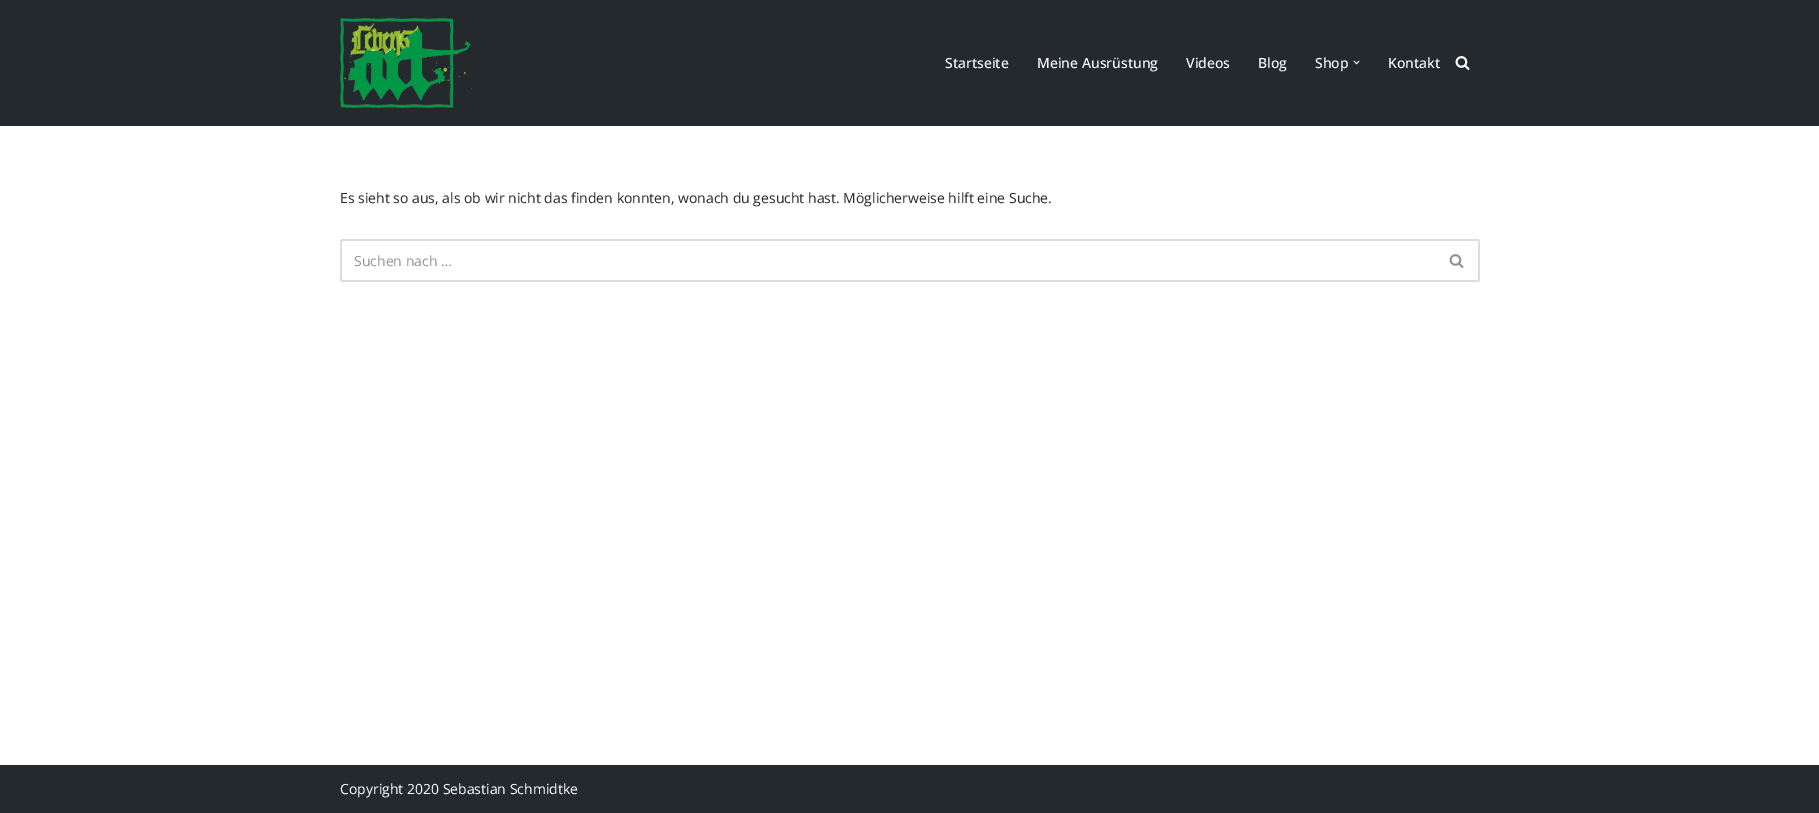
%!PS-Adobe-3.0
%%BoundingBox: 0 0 1819 813
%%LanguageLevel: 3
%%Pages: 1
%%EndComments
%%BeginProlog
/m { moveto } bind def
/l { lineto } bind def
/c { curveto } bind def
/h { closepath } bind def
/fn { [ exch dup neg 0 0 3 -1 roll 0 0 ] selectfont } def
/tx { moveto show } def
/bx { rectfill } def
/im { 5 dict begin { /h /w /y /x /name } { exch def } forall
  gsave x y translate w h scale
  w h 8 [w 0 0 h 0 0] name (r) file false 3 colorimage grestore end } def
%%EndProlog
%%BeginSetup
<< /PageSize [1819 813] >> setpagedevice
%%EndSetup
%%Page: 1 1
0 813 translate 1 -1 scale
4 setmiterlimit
1 setgray
0 0 1819 813 bx
0.141 0.161 0.18 setrgbcolor
0 0 1819 126 bx
(image0.raw) 340 18 132 90 im
/OpenSans-Medium 14 fn
1 setgray
(Startseite) 945 68 tx
(Meine Ausrüstung) 1037 68 tx
(Videos) 1186 68 tx
(Blog) 1258 68 tx
(Shop) 1315 68 tx
(image1.raw) 1353 60 7 5 im
(Kontakt) 1388 68 tx
(image2.raw) 1455 56 15 14 im
/OpenSans-Regular 14 fn
0.153 0.149 0.149 setrgbcolor
(Es sieht so aus, als ob wir nicht das finden konnten, wonach du gesucht hast. Möglicherweise hilft eine Suche.) 340 203 tx
0.867 setgray
343 239 m 1435 239 l 1435 282 l 343 282 l 341 282 340 281 340 279 c 340 242 l 340 240 341 239 343 239 c h 343 241 m 1435 241 l 1435 280 l 343 280 l 342 280 342 280 342 279 c 342 242 l 342 241 342 241 343 241 c h eofill
0.576 setgray
(Suchen nach …) 354 266 tx
0.867 setgray
1435 239 m 1477 239 l 1479 239 1480 240 1480 242 c 1480 279 l 1480 281 1479 282 1477 282 c 1435 282 l h 1435 241 m 1477 241 l 1478 241 1478 241 1478 242 c 1478 279 l 1478 280 1478 280 1477 280 c 1435 280 l h eofill
(image3.raw) 1449 254 15 14 im
0.141 0.161 0.18 setrgbcolor
0 765 1819 48 bx
1 setgray
(Copyright 2020 Sebastian Schmidtke) 340 794 tx
showpage
%%EOF
